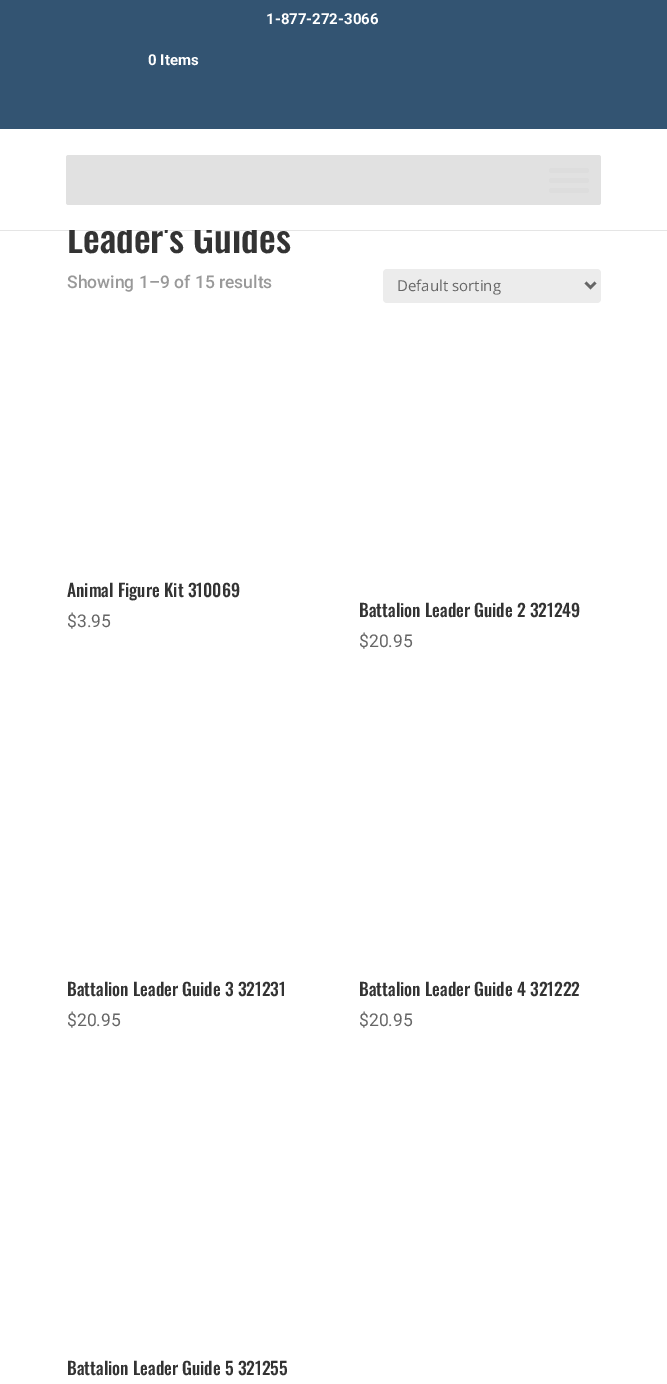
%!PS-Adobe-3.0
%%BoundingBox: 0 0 667 1384
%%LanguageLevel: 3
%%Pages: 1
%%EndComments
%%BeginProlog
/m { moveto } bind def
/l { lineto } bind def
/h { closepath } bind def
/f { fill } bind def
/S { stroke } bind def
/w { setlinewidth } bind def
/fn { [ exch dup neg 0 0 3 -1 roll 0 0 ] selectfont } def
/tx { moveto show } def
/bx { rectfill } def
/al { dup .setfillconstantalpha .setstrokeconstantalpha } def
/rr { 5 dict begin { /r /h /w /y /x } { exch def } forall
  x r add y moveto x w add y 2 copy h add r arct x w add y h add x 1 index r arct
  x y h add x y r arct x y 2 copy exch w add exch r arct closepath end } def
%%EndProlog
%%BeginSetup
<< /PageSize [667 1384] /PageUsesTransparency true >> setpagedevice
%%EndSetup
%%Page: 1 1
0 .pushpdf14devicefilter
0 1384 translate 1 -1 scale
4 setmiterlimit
1 setgray
0 0 667 1384 bx
0.2 0.329 0.447 setrgbcolor
0 0 667 129 bx
/Roboto-Bold 15 fn
1 setgray
(1-877-272-3066) 266 24 tx
(0 Items) 148 65 tx
0.1 al
0 setgray
0 230 m 0 231 l 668 231 l 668 74 l 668 230 l h f
/Oswald-Medium 37.5 fn
1 al
0.2 setgray
(Leader's Guides) 67 253 tx
1 setgray
69 222 188 8 bx
0.882 setgray
66 155 535 50 2.5 rr f
0.867 setgray
549 168 40 5 2.5 rr f
549 178 40 5 2.5 rr f
549 188 40 5 2.5 rr f
/Roboto-Medium 17.5 fn
0.6 setgray
(Showing 1–9 of 15 results) 67 288 tx
0.925 setgray
383 269 218 34 4 rr f
0.4 setgray
2.5 w
585.5 282.5 m 590.5 287.5 l 595.5 282.5 l S
/OpenSans-Regular 15 fn
(Default sorting) 397 291 tx
/Oswald-Medium 17.5 fn
0.2 setgray
(Animal Figure Kit 310069) 67 597 tx
/Roboto-Regular 17.5 fn
0.4 setgray
($3.95) 67 627 tx
/Oswald-Medium 17.5 fn
0.2 setgray
(Battalion Leader Guide 2 321249) 359 617 tx
/Roboto-Regular 17.5 fn
0.4 setgray
($20.95) 359 647 tx
/Oswald-Medium 17.5 fn
0.2 setgray
(Battalion Leader Guide 3 321231) 67 996 tx
/Roboto-Regular 17.5 fn
0.4 setgray
($20.95) 67 1026 tx
/Oswald-Medium 17.5 fn
0.2 setgray
(Battalion Leader Guide 4 321222) 359 996 tx
/Roboto-Regular 17.5 fn
0.4 setgray
($20.95) 359 1026 tx
/Oswald-Medium 17.5 fn
0.2 setgray
(Battalion Leader Guide 5 321255) 67 1375 tx
.poppdf14devicefilter showpage
%%EOF
